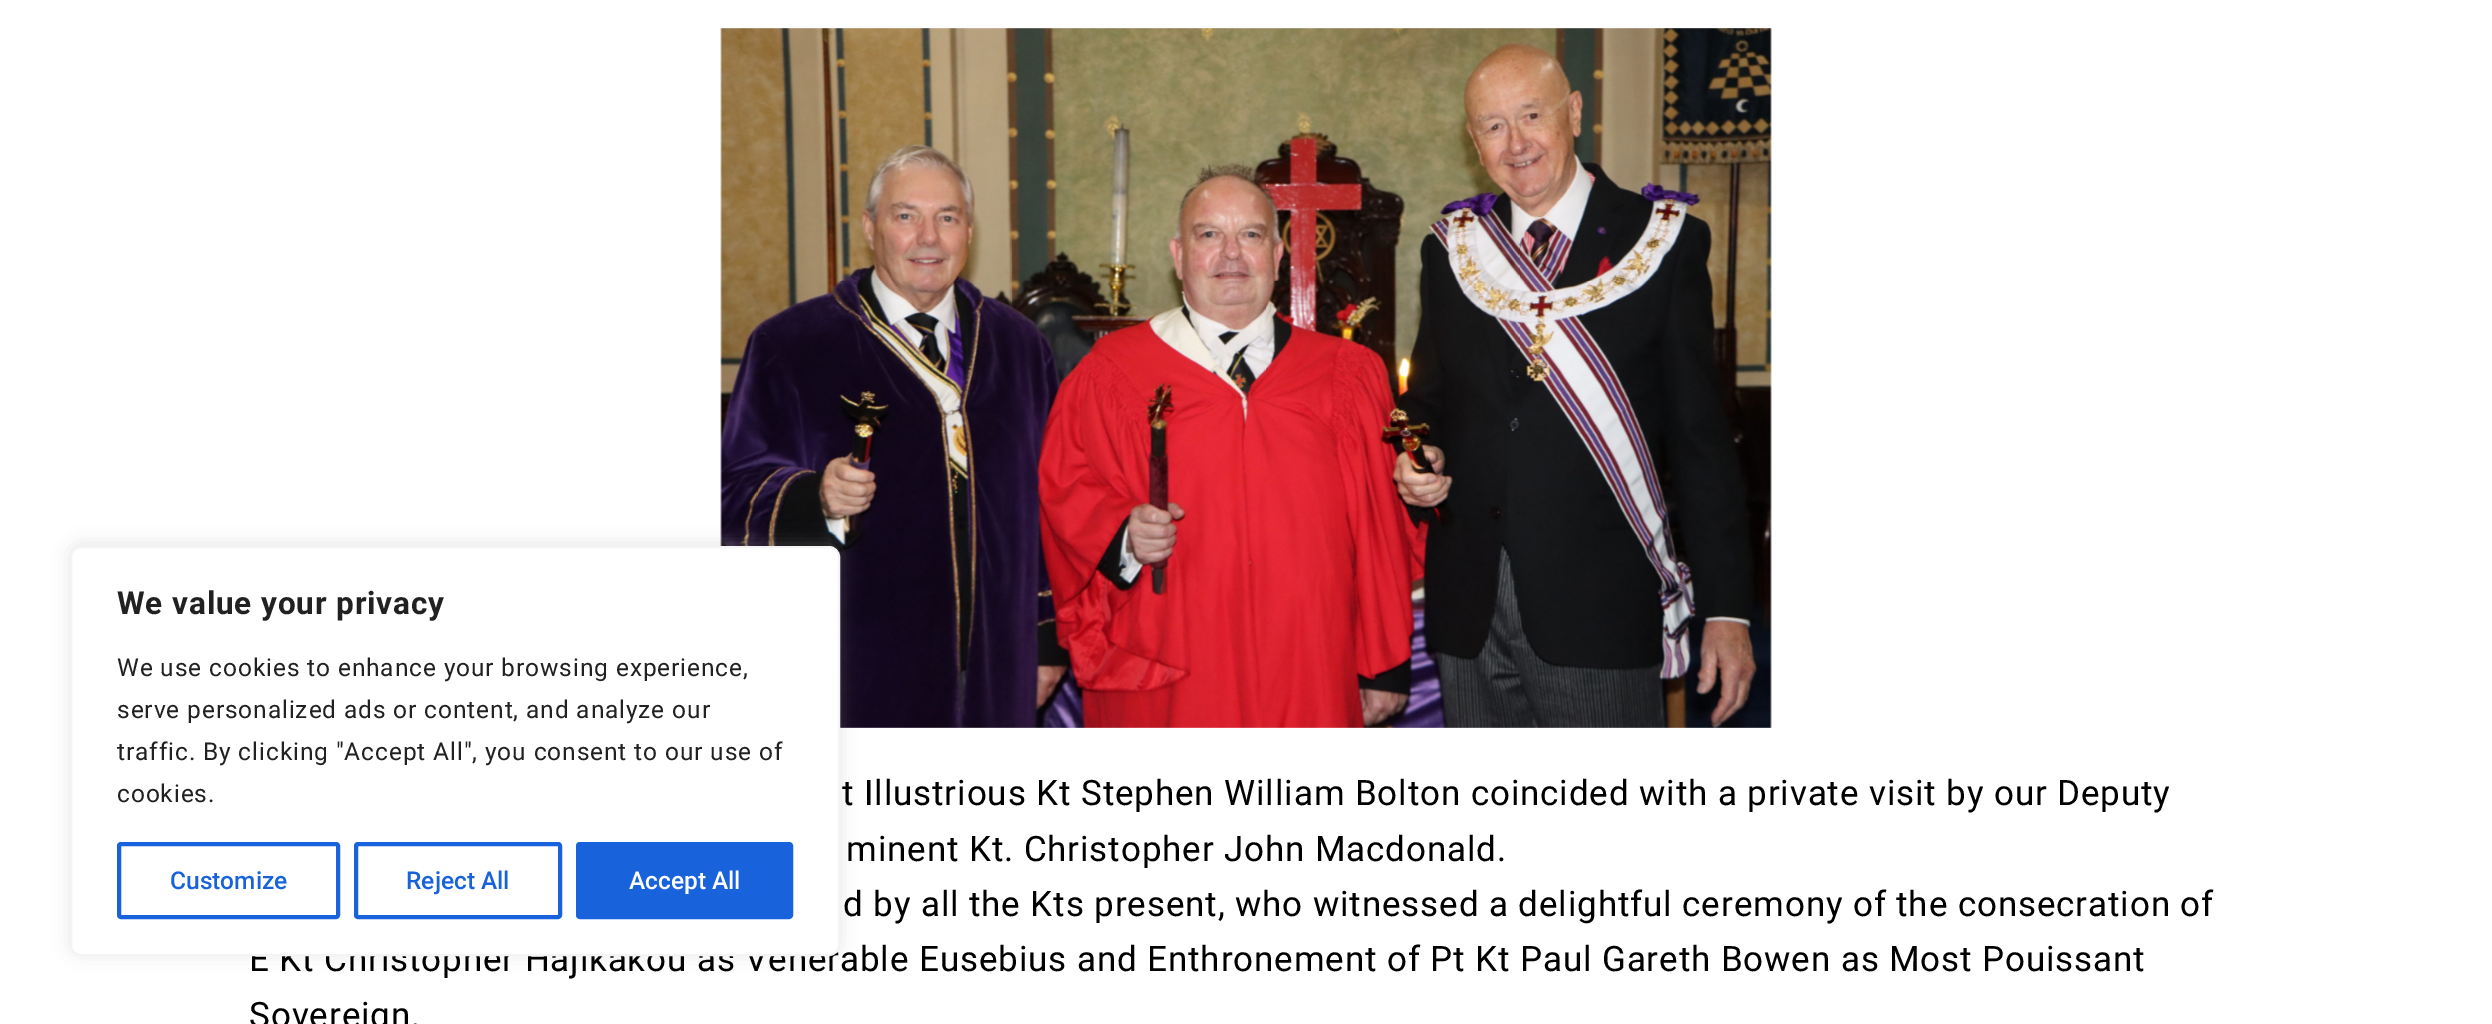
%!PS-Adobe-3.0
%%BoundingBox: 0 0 2492 1024
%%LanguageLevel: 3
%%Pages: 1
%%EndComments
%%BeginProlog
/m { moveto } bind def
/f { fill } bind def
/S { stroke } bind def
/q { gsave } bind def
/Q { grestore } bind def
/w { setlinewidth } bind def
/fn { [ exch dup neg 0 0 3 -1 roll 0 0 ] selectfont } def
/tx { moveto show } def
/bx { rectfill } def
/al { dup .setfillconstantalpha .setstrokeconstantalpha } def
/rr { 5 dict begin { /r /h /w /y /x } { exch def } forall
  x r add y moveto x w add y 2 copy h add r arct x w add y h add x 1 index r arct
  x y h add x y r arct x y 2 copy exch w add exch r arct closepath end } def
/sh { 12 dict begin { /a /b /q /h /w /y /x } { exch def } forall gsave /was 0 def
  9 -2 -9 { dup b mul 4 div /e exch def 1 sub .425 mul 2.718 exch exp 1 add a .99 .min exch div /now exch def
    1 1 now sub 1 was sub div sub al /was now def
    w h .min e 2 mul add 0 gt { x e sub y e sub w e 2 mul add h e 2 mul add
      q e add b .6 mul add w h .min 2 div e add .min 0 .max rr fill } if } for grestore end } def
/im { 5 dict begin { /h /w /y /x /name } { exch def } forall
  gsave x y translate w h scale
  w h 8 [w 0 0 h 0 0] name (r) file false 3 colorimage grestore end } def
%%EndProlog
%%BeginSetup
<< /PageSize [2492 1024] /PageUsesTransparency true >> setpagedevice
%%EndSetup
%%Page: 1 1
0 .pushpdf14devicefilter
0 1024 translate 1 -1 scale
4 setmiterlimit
1 setgray
0 0 2492 1024 bx
(image0.raw) 720 28 1052 700 im
0.675 0.671 0.671 setrgbcolor
70 544 770 410 11 9 0.3 sh
/Roboto-Regular 35 fn
0 setgray
249 971 m 0.88 0 (E Kt Christopher Hajikakou as Venerable Eusebius and Enthronement of Pt Kt Paul Gareth Bowen as Most Pouissant) ashow
1 setgray
71 547 768 408 10 rr q f Q
0.957 setgray
2 w
S
/Roboto-Bold 31.5 fn
0.129 setgray
117 614 m 0.88 0 (We value your privacy) ashow
/Roboto-Regular 24.5 fn
117 676 m 0.88 0 (We use cookies to enhance your browsing experience,) ashow
117 718 m 0.88 0 (serve personalized ads or content, and analyze our) ashow
117 760 m 0.88 0 (traffic. By clicking "Accept All", you consent to our use of) ashow
117 802 m 0.88 0 (cookies.) ashow
0.094 0.388 0.863 setrgbcolor
4 w
119 844 219 73 2 rr S
/Roboto-Medium 24.5 fn
(Customize) 170 889 tx
356 844 204 73 2 rr S
(Reject All) 406 889 tx
578 844 213 73 2 rr q f Q
S
1 setgray
(Accept All) 629 889 tx
/Roboto-Regular 35 fn
0 setgray
842 805 m 0.88 0 (t Illustrious Kt Stephen William Bolton coincided with a private visit by our Deputy) ashow
846 861 m 0.88 0 (minent Kt. Christopher John Macdonald.) ashow
843 916 m 0.88 0 (d by all the Kts present, who witnessed a delightful ceremony of the consecration of) ashow
249 1027 m 0.88 0 (Sovereign.) ashow
.poppdf14devicefilter showpage
%%EOF
